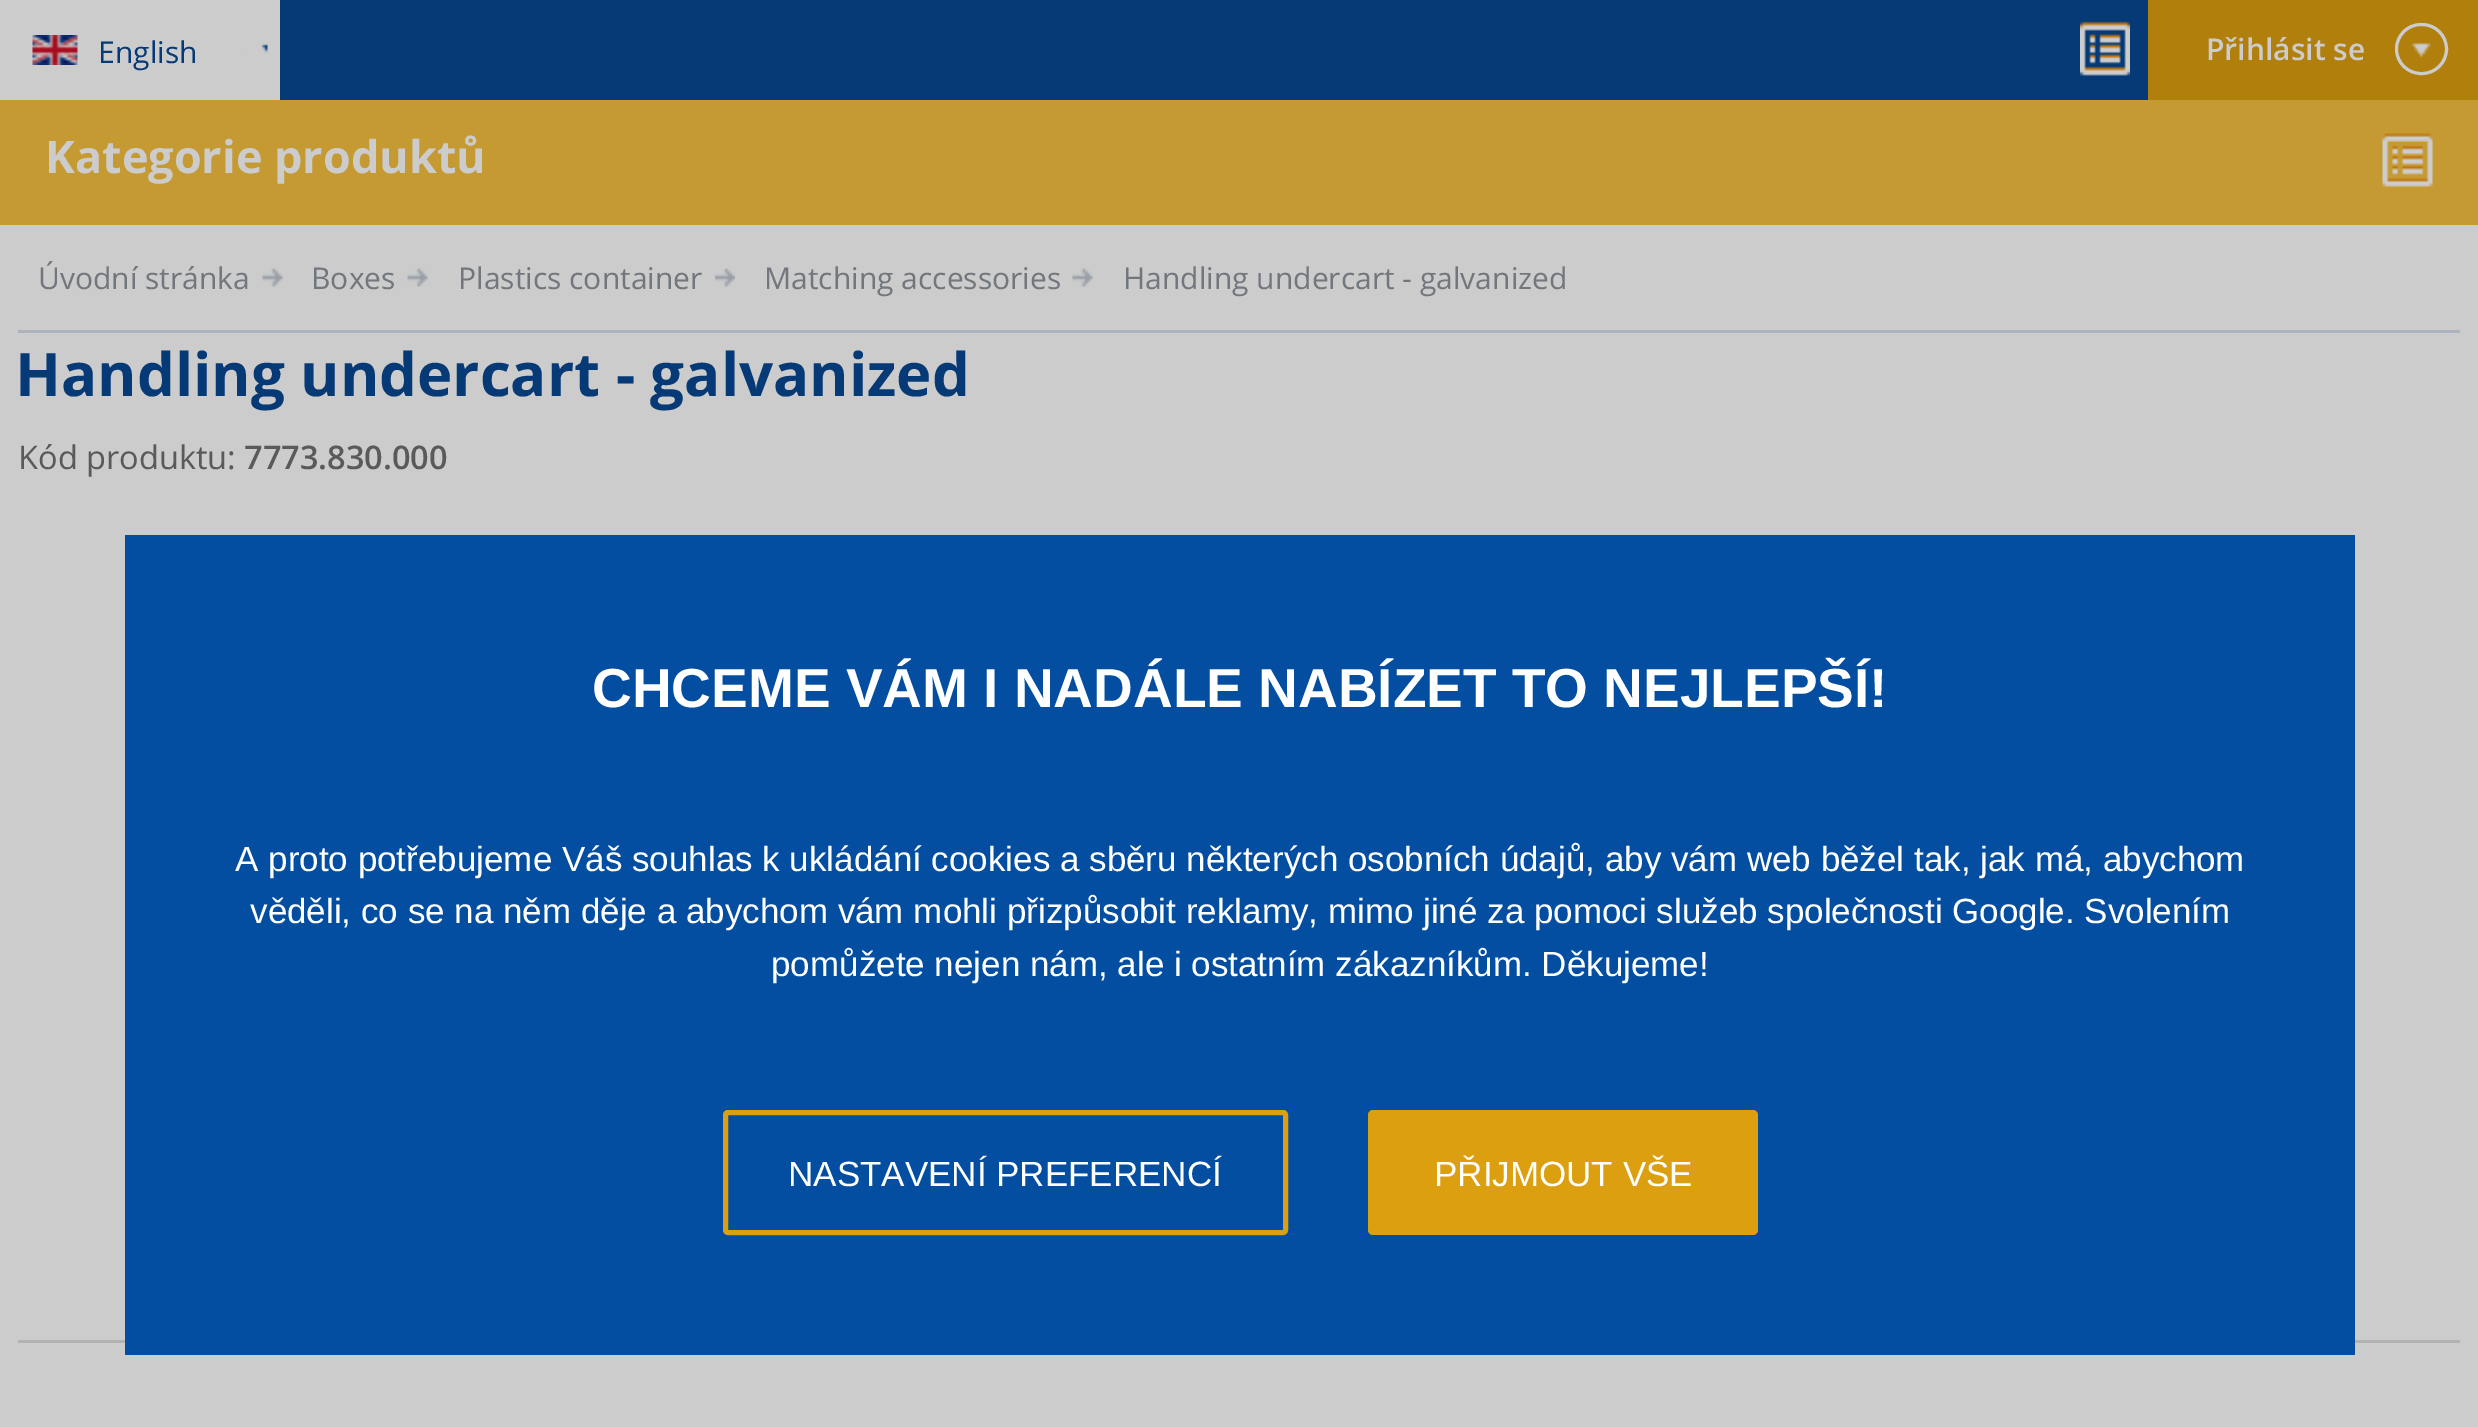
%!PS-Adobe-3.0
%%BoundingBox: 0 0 2478 1427
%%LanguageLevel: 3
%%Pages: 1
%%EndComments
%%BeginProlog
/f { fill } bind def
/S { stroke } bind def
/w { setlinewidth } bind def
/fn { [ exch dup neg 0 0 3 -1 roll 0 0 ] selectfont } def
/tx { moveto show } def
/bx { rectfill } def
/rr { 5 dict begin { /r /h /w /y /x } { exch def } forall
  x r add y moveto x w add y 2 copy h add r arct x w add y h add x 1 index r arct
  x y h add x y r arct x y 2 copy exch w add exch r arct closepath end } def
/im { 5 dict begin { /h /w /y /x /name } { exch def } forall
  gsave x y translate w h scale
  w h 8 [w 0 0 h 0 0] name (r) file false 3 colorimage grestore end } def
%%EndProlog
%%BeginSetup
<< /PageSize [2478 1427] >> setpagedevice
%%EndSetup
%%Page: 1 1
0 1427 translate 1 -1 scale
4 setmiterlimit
0.8 setgray
0 0 2478 1427 bx
(image0.raw) 32 35 46 30 im
/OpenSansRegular-Regular 30 fn
0.02 0.227 0.463 setrgbcolor
(English) 98 63 tx
(image1.raw) 246 44 22 9 im
280 0 1868 100 bx
(image2.raw) 2080 21 50 55 im
0.69 0.498 0.047 setrgbcolor
2148 0 330 100 bx
/OpenSans-SemiBold 30 fn
0.8 setgray
(Přihlásit se) 2206 60 tx
(image3.raw) 2411 43 37 14 im
3 w
2396.5 24.5 50 49 24.5 rr S
0.776 0.604 0.196 setrgbcolor
0 100 2478 125 bx
/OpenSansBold-Bold 45 fn
0.8 setgray
(Kategorie produktů) 45 173 tx
(image4.raw) 2382 133 51 54 im
0.671 0.702 0.745 setrgbcolor
18 330 2442 3 bx
/OpenSansRegular-Regular 30 fn
0.447 0.467 0.494 setrgbcolor
(Úvodní stránka) 38 289 tx
(image5.raw) 262 268 21 19 im
(Boxes) 311 289 tx
(image5.raw) 407 268 21 19 im
(Plastics container) 458 289 tx
(image6.raw) 715 268 20 19 im
(Matching accessories) 764 289 tx
(image5.raw) 1072 268 21 19 im
(Handling undercart - galvanized) 1123 289 tx
/OpenSansBold-Bold 60 fn
0.02 0.227 0.463 setrgbcolor
(Handling undercart - galvanized) 15 396 tx
/OpenSansRegular-Regular 32.5 fn
0.353 setgray
(Kód produktu:) 18 469 tx
/OpenSans-SemiBold 32.5 fn
(7773.830.000) 244 469 tx
0.702 setgray
18 1340 2442 3 bx
0.012 0.306 0.631 setrgbcolor
125 535 2230 820 bx
/LiberationSans-Bold 55 fn
1 setgray
(CHCEME VÁM I NADÁLE NABÍZET TO NEJLEPŠÍ!) 592 707 tx
/LiberationSans-Regular 35 fn
(A proto potřebujeme Váš souhlas k ukládání cookies a sběru některých osobních údajů, aby vám web běžel tak, jak má, abychom) 235 871 tx
(věděli, co se na něm děje a abychom vám mohli přizpůsobit reklamy, mimo jiné za pomoci služeb společnosti Google. Svolením) 250 923 tx
(pomůžete nejen nám, ale i ostatním zákazníkům. Děkujeme!) 771 976 tx
0.863 0.624 0.059 setrgbcolor
5 w
725.5 1112.5 560 120 2.5 rr S
1 setgray
(NASTAVENÍ PREFERENCÍ) 788 1186 tx
0.863 0.624 0.059 setrgbcolor
1368 1110 390 125 5 rr f
1 setgray
(PŘIJMOUT VŠE) 1434 1186 tx
showpage
%%EOF
